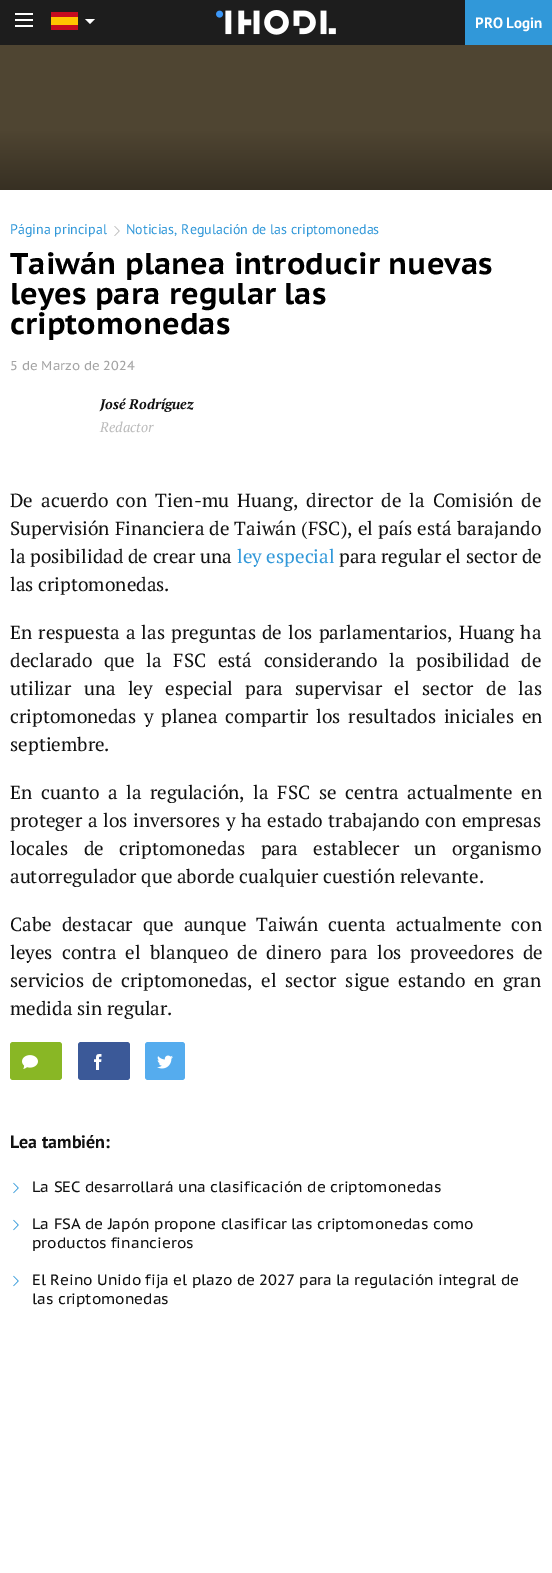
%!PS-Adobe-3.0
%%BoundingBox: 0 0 552 1573
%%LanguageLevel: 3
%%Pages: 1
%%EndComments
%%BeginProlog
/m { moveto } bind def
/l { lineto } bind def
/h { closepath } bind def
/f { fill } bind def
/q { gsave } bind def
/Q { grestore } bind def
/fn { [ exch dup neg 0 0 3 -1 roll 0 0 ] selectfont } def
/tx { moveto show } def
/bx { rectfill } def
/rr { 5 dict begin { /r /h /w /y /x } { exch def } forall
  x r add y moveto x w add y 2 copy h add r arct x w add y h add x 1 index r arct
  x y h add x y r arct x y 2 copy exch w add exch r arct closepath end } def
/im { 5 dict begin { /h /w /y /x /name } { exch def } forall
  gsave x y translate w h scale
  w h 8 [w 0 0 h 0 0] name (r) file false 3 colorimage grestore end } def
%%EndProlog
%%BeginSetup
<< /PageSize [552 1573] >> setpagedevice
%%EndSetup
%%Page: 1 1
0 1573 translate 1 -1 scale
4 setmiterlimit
1 setgray
0 0 552 1573 bx
0.114 setgray
0 0 465 45 bx
1 setgray
15 13 18 2 bx
15 19 18 2 bx
15 25 18 2 bx
(image0.raw) 51 12 27 18 im
85 19 m 95 19 l 90 24 l h f
(image1.raw) 216 10 120 25 im
0.192 0.596 0.851 setrgbcolor
465 0 87 45 bx
/PTSans-Bold 15 fn
1 setgray
(PRO Login) 475 28 tx
0.31 0.271 0.196 setrgbcolor
0 45 552 85 bx
q 0 130 m 552 130 l 552 190 l 0 190 l h clip newpath
<< /ShadingType 2 /ColorSpace /DeviceRGB /Coords [276 190 276 130] /Extend [true true] /Function << /FunctionType 2 /Domain [0 1] /C0 [0.216 0.188 0.137] /C1 [0.31 0.271 0.196] /N 1 >> >> shfill Q
/PTSans-Regular 14 fn
0.192 0.596 0.851 setrgbcolor
(Página principal) 10 234 tx
(image2.raw) 114 226 6 10 im
(Noticias, Regulación de las criptomonedas) 126 234 tx
/PTSansCaption-Bold 30 fn
0 setgray
(Taiwán planea introducir nuevas) 10 274 tx
(leyes para regular las) 10 304 tx
(criptomonedas) 10 334 tx
/PTSansCaption-Regular 13 fn
0.639 setgray
(5 de Marzo de 2024) 10 370 tx
/PTSerif-BoldItalic 14 fn
0.067 setgray
(José Rodríguez) 100 409 tx
/PTSerif-Italic 14 fn
0.733 setgray
(Redactor) 100 432 tx
/PTSerif-Regular 19 fn
0.067 setgray
10 507 m 3.5 0 32 (De acuerdo con Tien-mu Huang, director de la Comisión de) widthshow
10 535 m 0.5 0 32 (Supervisión Financiera de Taiwán \(FSC\), el país está barajando) widthshow
(la posibilidad de crear una) 10 563 tx
0.192 0.596 0.851 setrgbcolor
(ley especial) 237 563 tx
0.067 setgray
(para regular el sector de) 339 563 tx
(las criptomonedas.) 10 591 tx
10 639 m 1.5 0 32 (En respuesta a las preguntas de los parlamentarios, Huang ha) widthshow
10 667 m 7 0 32 (declarado que la FSC está considerando la posibilidad de) widthshow
10 695 m 7.75 0 32 (utilizar una ley especial para supervisar el sector de las) widthshow
10 723 m 3 0 32 (criptomonedas y planea compartir los resultados iniciales en) widthshow
(septiembre.) 10 751 tx
10 799 m 4 0 32 (En cuanto a la regulación, la FSC se centra actualmente en) widthshow
10 827 m 1 0 32 (proteger a los inversores y ha estado trabajando con empresas) widthshow
10 855 m 10.75 0 32 (locales de criptomonedas para establecer un organismo) widthshow
(autorregulador que aborde cualquier cuestión relevante.) 10 883 tx
10 931 m 5.5 0 32 (Cabe destacar que aunque Taiwán cuenta actualmente con) widthshow
10 959 m 4.5 0 32 (leyes contra el blanqueo de dinero para los proveedores de) widthshow
10 987 m 4 0 32 (servicios de criptomonedas, el sector sigue estando en gran) widthshow
(medida sin regular.) 10 1015 tx
0.537 0.718 0.145 setrgbcolor
10 1042 52 38 3 rr f
(image3.raw) 22 1055 16 14 im
0.231 0.349 0.596 setrgbcolor
78 1042 52 38 3 rr f
(image4.raw) 94 1054 8 16 im
0.333 0.675 0.933 setrgbcolor
145 1042 40 38 3 rr f
(image5.raw) 157 1055 16 14 im
/PTSans-Bold 18 fn
0.067 setgray
(Lea también:) 10 1148 tx
(image6.raw) 13 1182 6 12 im
/PTSansCaption-Regular 15 fn
(La SEC desarrollará una clasificación de criptomonedas) 32 1192 tx
(image6.raw) 13 1219 6 12 im
(La FSA de Japón propone clasificar las criptomonedas como) 32 1229 tx
(productos financieros) 32 1248 tx
(image6.raw) 13 1275 6 12 im
(El Reino Unido fija el plazo de 2027 para la regulación integral de) 32 1285 tx
(las criptomonedas) 32 1304 tx
showpage
%%EOF
